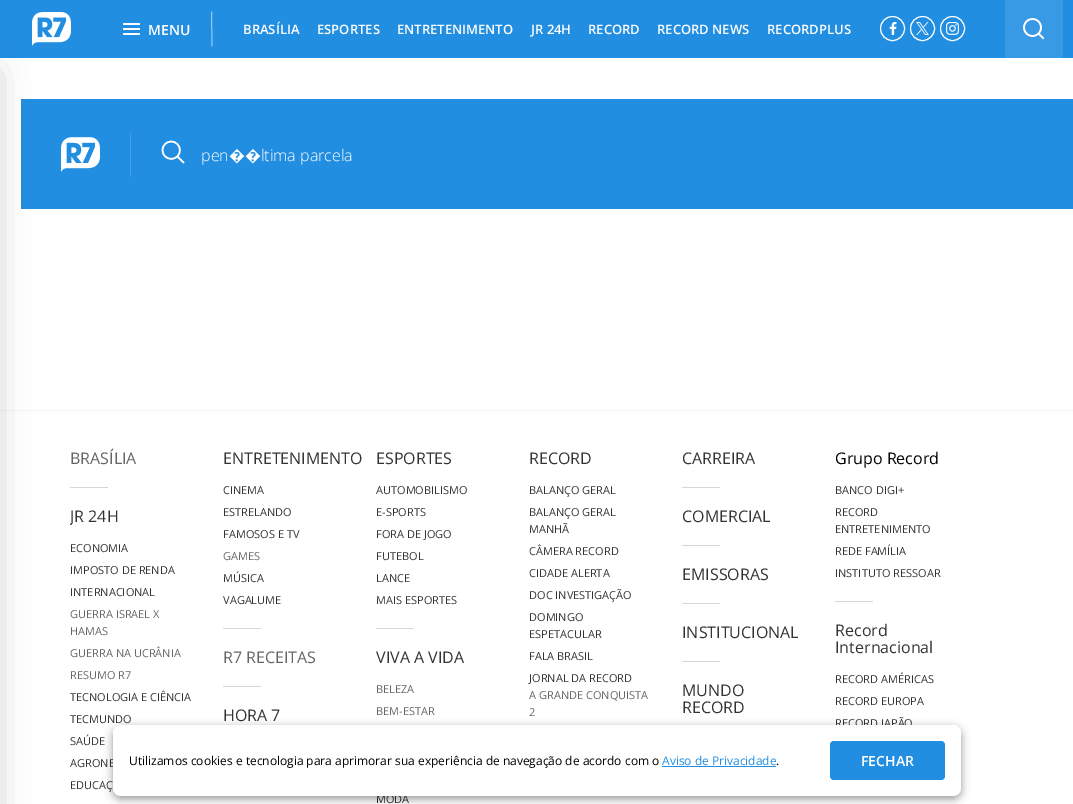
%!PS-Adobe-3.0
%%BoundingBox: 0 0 1073 804
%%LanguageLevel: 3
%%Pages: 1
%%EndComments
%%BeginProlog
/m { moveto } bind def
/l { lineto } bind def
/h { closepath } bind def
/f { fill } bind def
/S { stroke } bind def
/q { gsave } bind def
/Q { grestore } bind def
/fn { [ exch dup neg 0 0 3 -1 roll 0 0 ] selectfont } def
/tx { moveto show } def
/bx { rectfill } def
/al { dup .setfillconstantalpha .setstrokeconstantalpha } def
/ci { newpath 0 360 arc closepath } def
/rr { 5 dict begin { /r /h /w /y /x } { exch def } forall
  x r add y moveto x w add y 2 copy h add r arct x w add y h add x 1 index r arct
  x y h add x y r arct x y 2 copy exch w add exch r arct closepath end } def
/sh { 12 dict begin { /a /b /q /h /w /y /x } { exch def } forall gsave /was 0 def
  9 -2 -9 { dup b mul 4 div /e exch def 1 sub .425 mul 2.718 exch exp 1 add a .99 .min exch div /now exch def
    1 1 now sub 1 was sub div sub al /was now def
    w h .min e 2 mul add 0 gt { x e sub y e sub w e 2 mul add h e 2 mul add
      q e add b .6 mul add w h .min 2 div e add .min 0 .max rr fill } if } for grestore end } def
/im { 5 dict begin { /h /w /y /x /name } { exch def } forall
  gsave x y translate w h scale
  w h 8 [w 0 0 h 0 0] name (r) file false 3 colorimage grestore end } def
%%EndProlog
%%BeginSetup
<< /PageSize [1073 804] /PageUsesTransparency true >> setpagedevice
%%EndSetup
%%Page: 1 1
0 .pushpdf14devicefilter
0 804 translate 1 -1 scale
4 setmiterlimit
1 setgray
0 0 1073 804 bx
0.133 0.557 0.886 setrgbcolor
0 0 1073 58 bx
(image0.raw) 32 12 39 34 im
0.133 0.557 0.882 setrgbcolor
21 99 1052 110 bx
0.961 setgray
0 410 1073 1 bx
0 setgray
-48 74 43 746 0 16 0.24 sh
1 setgray
123 23 17 2 1 rr f
123 28 17 2 1 rr f
123 33 17 2 1 rr f
/OpenSans-SemiBold 14 fn
(MENU) 148 35 tx
0.569 0.78 0.945 setrgbcolor
211 11.5 m 212 11.5 l 212.5 46.5 l 211.5 46.5 l h f
/OpenSans-SemiBold 13 fn
1 setgray
(BRASÍLIA) 243 34 tx
(ESPORTES) 317 34 tx
(ENTRETENIMENTO) 397 34 tx
(JR 24H) 531 34 tx
(RECORD) 588 34 tx
(RECORD NEWS) 657 34 tx
(RECORDPLUS) 767 34 tx
892.5 28.5 12 ci S
(image1.raw) 889 22 8 13 im
922.5 28.5 12 ci S
(image2.raw) 916 22 13 13 im
952.5 28.5 12 ci S
(image3.raw) 946 22 13 13 im
0.22 0.6 0.898 setrgbcolor
1005 0 58 58 bx
(image4.raw) 1023 18 22 22 im
(image5.raw) 61 137 39 35 im
(image6.raw) 161 140 24 24 im
0.263 0.624 0.902 setrgbcolor
130 133 1 44 bx
/OpenSans-Light 16 fn
1 setgray
(pen��ltima parcela) 201 161 tx
/OpenSans-Regular 16 fn
0.4 setgray
(BRASÍLIA) 70 464 tx
0.839 setgray
70 487 38 1 bx
q
70 410 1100 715 rectclip
0.2 setgray
(JR 24H) 70 522 tx
Q
/OpenSans-Regular 11 fn
0.2 setgray
(ECONOMIA) 70 552 tx
(IMPOSTO DE RENDA) 70 574 tx
(INTERNACIONAL) 70 596 tx
0.4 setgray
(GUERRA ISRAEL X) 70 618 tx
(HAMAS) 70 635 tx
(GUERRA NA UCRÂNIA) 70 657 tx
(RESUMO R7) 70 679 tx
0.2 setgray
(TECNOLOGIA E CIÊNCIA) 70 701 tx
(TECMUNDO) 70 723 tx
(SAÚDE) 70 745 tx
(AGRONE) 70 767 tx
(EDUCAÇ) 70 789 tx
/OpenSans-Regular 16 fn
(ENTRETENIMENTO) 223 464 tx
/OpenSans-Regular 11 fn
(CINEMA) 223 494 tx
(ESTRELANDO) 223 516 tx
(FAMOSOS E TV) 223 538 tx
0.4 setgray
(GAMES) 223 560 tx
0.2 setgray
(MÚSICA) 223 582 tx
(VAGALUME) 223 604 tx
0.839 setgray
223 628 38 1 bx
/OpenSans-Regular 16 fn
0.4 setgray
(R7 RECEITAS) 223 663 tx
0.839 setgray
223 686 38 1 bx
0.2 setgray
(HORA 7) 223 721 tx
(ESPORTES) 376 464 tx
/OpenSans-Regular 11 fn
(AUTOMOBILISMO) 376 494 tx
(E-SPORTS) 376 516 tx
(FORA DE JOGO) 376 538 tx
(FUTEBOL) 376 560 tx
(LANCE) 376 582 tx
(MAIS ESPORTES) 376 604 tx
0.839 setgray
376 628 38 1 bx
/OpenSans-Regular 16 fn
0.2 setgray
(VIVA A VIDA) 376 663 tx
/OpenSans-Regular 11 fn
0.4 setgray
(BELEZA) 376 693 tx
(BEM-ESTAR) 376 715 tx
0.2 setgray
(MODA) 376 803 tx
/OpenSans-Regular 16 fn
(RECORD) 529 464 tx
/OpenSans-Regular 11 fn
(BALANÇO GERAL) 529 494 tx
(BALANÇO GERAL) 529 516 tx
(MANHÃ) 529 533 tx
(CÂMERA RECORD) 529 555 tx
(CIDADE ALERTA) 529 577 tx
(DOC INVESTIGAÇÃO) 529 599 tx
(DOMINGO) 529 621 tx
(ESPETACULAR) 529 638 tx
(FALA BRASIL) 529 660 tx
(JORNAL DA RECORD) 529 682 tx
0.4 setgray
(A GRANDE CONQUISTA) 529 699 tx
(2) 529 716 tx
/OpenSans-Regular 16 fn
0.2 setgray
(CARREIRA) 682 464 tx
0.839 setgray
682 487 38 1 bx
0.2 setgray
(COMERCIAL) 682 522 tx
0.839 setgray
682 545 38 1 bx
0.2 setgray
(EMISSORAS) 682 580 tx
0.839 setgray
682 603 38 1 bx
0.2 setgray
(INSTITUCIONAL) 682 638 tx
0.839 setgray
682 661 38 1 bx
0.2 setgray
(MUNDO) 682 696 tx
(RECORD) 682 713 tx
0 setgray
(Grupo Record) 835 464 tx
/OpenSans-Regular 11 fn
0.2 setgray
(BANCO DIGI+) 835 494 tx
(RECORD) 835 516 tx
(ENTRETENIMENTO) 835 533 tx
(REDE FAMÍLIA) 835 555 tx
(INSTITUTO RESSOAR) 835 577 tx
0.839 setgray
835 601 38 1 bx
/OpenSans-Regular 16 fn
0.2 setgray
(Record) 835 636 tx
(Internacional) 835 653 tx
/OpenSans-Regular 11 fn
(RECORD AMÉRICAS) 835 683 tx
(RECORD EUROPA) 835 705 tx
(RECORD JAPÃO) 835 727 tx
0 setgray
113 728 848 71 8 4.5 0.41 sh
1 setgray
113 725 848 71 8 rr f
/OpenSans-Regular 12 fn
0 setgray
(Utilizamos cookies e tecnologia para aprimorar sua experiência de navegação de acordo com o) 129 765 tx
0.129 0.557 0.882 setrgbcolor
(Aviso de Privacidade) 662 765 tx
662 766 114 1 bx
0 setgray
(.) 776 765 tx
0.129 0.557 0.882 setrgbcolor
830 741 115 39 4 rr f
/OpenSans-SemiBold 14 fn
1 setgray
(FECHAR) 861 766 tx
.poppdf14devicefilter showpage
%%EOF
